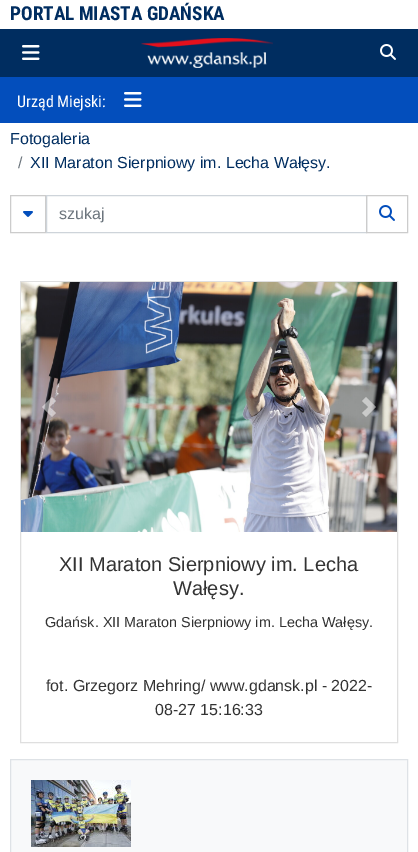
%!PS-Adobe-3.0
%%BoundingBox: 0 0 418 852
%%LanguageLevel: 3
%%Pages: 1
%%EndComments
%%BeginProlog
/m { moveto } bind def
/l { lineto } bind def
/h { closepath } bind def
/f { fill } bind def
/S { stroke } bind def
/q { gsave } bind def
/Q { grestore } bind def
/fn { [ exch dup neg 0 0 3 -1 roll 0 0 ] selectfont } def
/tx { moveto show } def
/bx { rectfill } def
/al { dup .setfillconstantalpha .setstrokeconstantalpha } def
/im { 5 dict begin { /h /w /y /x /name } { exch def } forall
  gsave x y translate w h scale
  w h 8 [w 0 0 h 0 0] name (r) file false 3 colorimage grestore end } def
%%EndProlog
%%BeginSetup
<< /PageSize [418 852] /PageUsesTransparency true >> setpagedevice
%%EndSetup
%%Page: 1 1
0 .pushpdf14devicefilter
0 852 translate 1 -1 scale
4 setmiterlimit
1 setgray
0 0 418 852 bx
/RobotoCondensed-Bold 19.25 fn
0 0.176 0.376 setrgbcolor
(PORTAL MIASTA GDAŃSKA) 10 20 tx
0 29 418 48 bx
(image0.raw) 22 45 18 15 im
(image1.raw) 141 38 132 30 im
(image2.raw) 380 44 16 16 im
0.012 0.306 0.737 setrgbcolor
0 77 418 46 bx
/RobotoCondensed-Regular 16 fn
1 setgray
(Urząd Miejski:) 17 107 tx
(image3.raw) 124 92 18 15 im
/LiberationSans-Regular 16 fn
0 0.176 0.376 setrgbcolor
(Fotogaleria) 10 144 tx
0.424 0.459 0.49 setrgbcolor
(/) 18 168 tx
0 0.176 0.376 setrgbcolor
(XII Maraton Sierpniowy im. Lecha Wałęsy.) 30 168 tx
0.8 setgray
10.5 195.5 35 37 rectstroke
(image4.raw) 23 211 10 6 im
0.808 0.831 0.855 setrgbcolor
46.5 195.5 320 37 rectstroke
0.424 0.459 0.49 setrgbcolor
(szukaj) 59 219 tx
0.8 setgray
366.5 195.5 41 37 rectstroke
(image5.raw) 379 205 16 16 im
0.875 setgray
20.5 281.5 377 461 rectstroke
(image6.raw) 21 282 376 250 im
0.5 al
1 setgray
52 397 m 42 407 l 52 417 l 56 413 l 49.5 407 l 56 401 l h f
366 397 m 362 401 l 368.5 407 l 362 413 l 366 417 l 376 407 l h f
/LiberationSans-Regular 20 fn
1 al
0.2 setgray
(XII Maraton Sierpniowy im. Lecha) 59 571 tx
(Wałęsy.) 173 595 tx
/LiberationSans-Regular 14.4 fn
(Gdańsk. XII Maraton Sierpniowy im. Lecha Wałęsy.) 45 627 tx
/LiberationSans-Regular 16 fn
(fot. Grzegorz Mehring/ www.gdansk.pl - 2022-) 46 691 tx
(08-27 15:16:33) 155 715 tx
0.973 0.976 0.98 setrgbcolor
10.5 759.5 m 407.5 759.5 l 407.5 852.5 l 10.5 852.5 l h q f Q
0.871 0.886 0.902 setrgbcolor
S
(image7.raw) 31 780 100 67 im
.poppdf14devicefilter showpage
%%EOF
